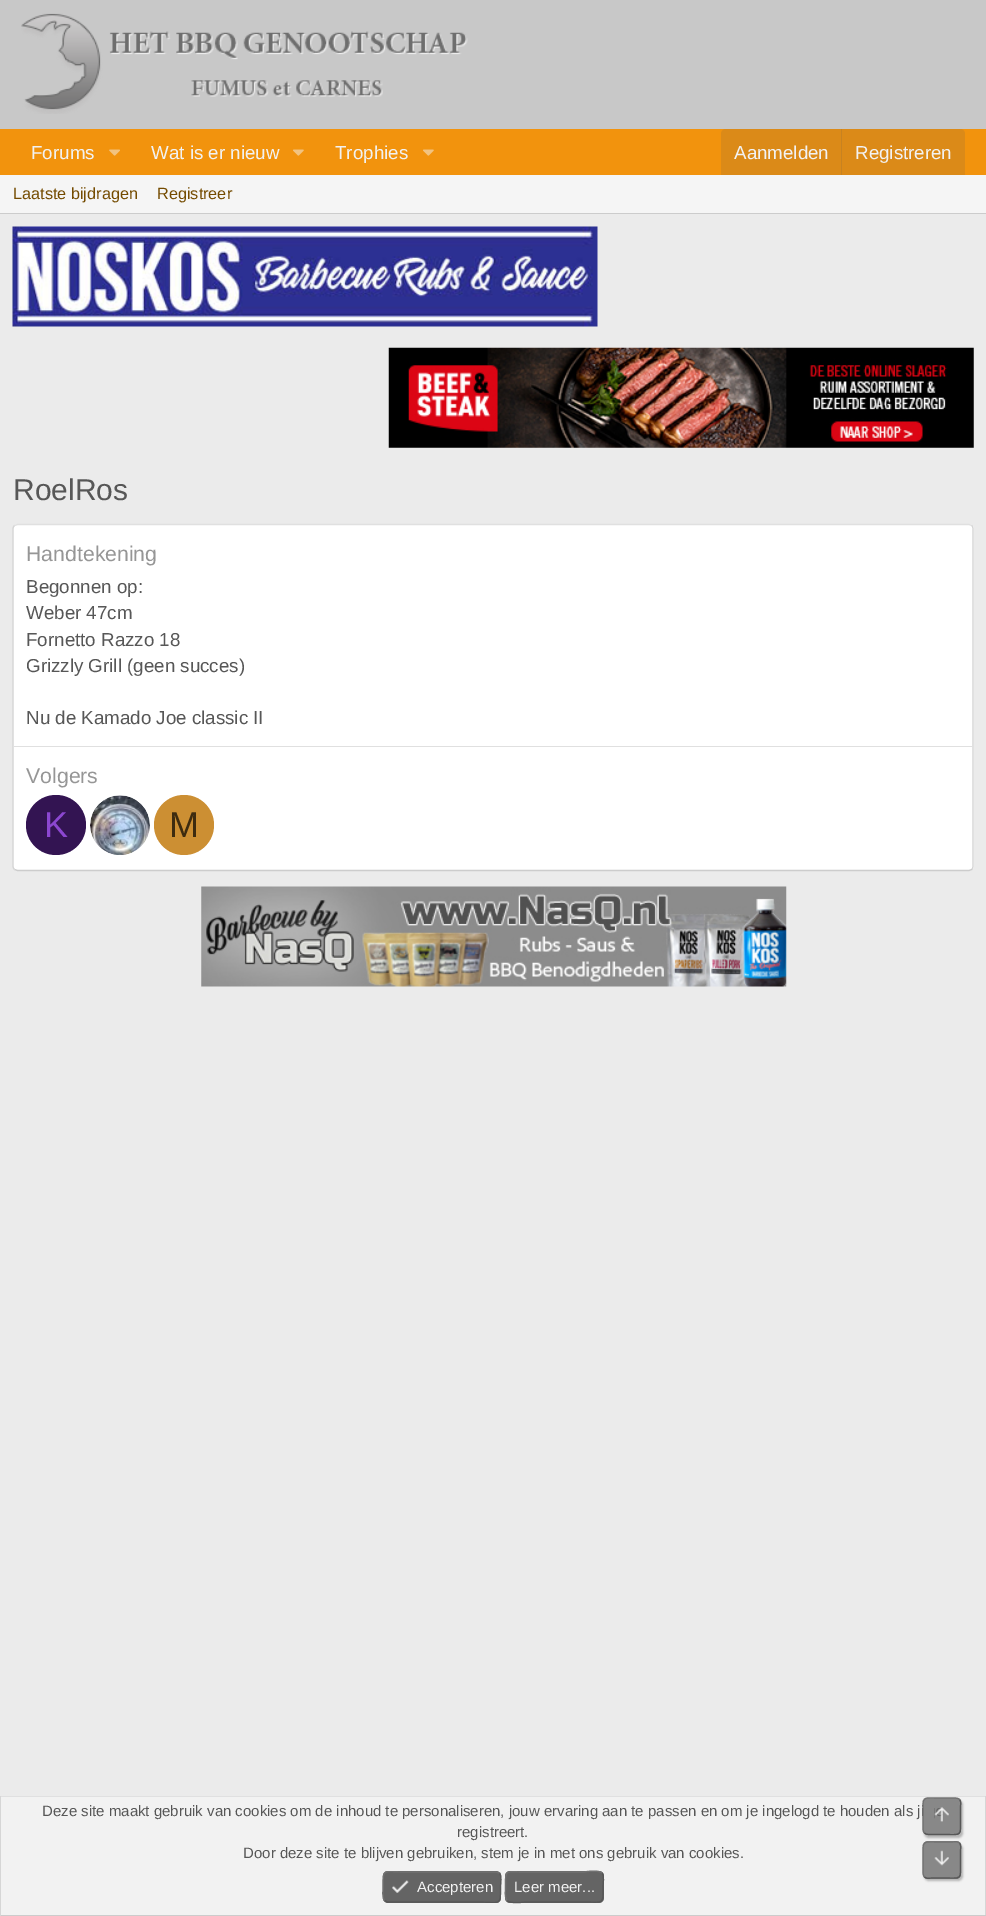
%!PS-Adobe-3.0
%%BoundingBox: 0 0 986 1916
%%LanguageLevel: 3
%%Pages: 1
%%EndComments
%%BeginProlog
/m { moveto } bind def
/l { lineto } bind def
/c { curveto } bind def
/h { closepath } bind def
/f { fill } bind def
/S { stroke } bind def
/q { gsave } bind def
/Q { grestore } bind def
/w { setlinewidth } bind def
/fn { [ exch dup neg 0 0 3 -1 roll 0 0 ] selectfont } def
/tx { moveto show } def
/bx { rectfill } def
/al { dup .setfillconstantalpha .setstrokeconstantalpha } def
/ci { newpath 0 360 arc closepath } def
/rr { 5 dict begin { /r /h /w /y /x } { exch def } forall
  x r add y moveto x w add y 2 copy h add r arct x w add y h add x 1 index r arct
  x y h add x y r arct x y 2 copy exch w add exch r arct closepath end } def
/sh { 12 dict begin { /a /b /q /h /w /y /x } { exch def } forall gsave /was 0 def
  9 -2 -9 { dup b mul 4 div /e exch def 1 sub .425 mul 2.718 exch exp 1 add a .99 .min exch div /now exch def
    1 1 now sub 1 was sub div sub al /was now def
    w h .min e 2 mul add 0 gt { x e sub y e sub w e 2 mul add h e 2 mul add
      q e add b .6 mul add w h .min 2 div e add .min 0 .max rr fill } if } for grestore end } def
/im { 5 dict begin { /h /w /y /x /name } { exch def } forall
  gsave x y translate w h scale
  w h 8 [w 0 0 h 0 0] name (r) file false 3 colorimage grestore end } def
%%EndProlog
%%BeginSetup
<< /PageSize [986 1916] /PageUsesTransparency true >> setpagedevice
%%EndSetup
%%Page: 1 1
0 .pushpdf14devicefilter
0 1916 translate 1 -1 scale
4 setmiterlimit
0.922 setgray
0 0 986 1916 bx
0.784 setgray
0 0 986 129 bx
(image0.raw) 21 13 447 101 im
0.949 0.576 0.051 setrgbcolor
0 129 986 46 bx
/LiberationSans-Regular 18.75 fn
0.949 setgray
(Forums) 31 159 tx
(image1.raw) 109 149 11 7 im
(Wat is er nieuw) 151 159 tx
(image2.raw) 293 149 11 7 im
(Trophies) 335 159 tx
(image2.raw) 423 149 11 7 im
0.859 0.541 0.094 setrgbcolor
726 129 m 960 129 l 963 129 965 131 965 134 c 965 175 l 721 175 l 721 134 l 721 131 723 129 726 129 c h f
0.949 setgray
(Aanmelden) 734 159 tx
0.78 0.51 0.129 setrgbcolor
841 129 1 46 bx
0.949 setgray
(Registreren) 855 159 tx
0.961 setgray
0 175 986 38 bx
0.8 setgray
0 213 986 1 bx
/LiberationSans-Regular 16.25 fn
0.455 0.294 0 setrgbcolor
(Laatste bijdragen) 13 199 tx
(Registreer) 157 199 tx
(image3.raw) 12 226 586 101 im
(image4.raw) 388 347 586 101 im
/LiberationSans-Regular 30 fn
0.341 setgray
(RoelRos) 13 500 tx
1 setgray
13 524 961 347 5 rr f
0.878 setgray
1.2 w
14.5 525.5 m 17.5 524.5 l 969 524.5 l 972 525.5 l S
0.839 setgray
972 525.5 m 972.5 526.5 973 527.5 973 529 c 973 866 l 973 867.5 972.5 868.5 972 869.5 c S
0.8 setgray
972 869.5 m 969 870.5 l 17.5 870.5 l 14.5 869.5 l S
0.839 setgray
14.5 869.5 m 13.5 868.5 13 867.5 13 866 c 13 529 l 13 527.5 13.5 526.5 14.5 525.5 c S
/LiberationSans-Regular 21.25 fn
0.588 setgray
(Handtekening) 26 561 tx
/LiberationSans-Regular 18.75 fn
0.341 setgray
(Begonnen op:) 26 593 tx
(Weber 47cm) 26 619 tx
(Fornetto Razzo 18) 26 646 tx
(Grizzly Grill \(geen succes\)) 26 672 tx
(Nu de Kamado Joe classic II) 26 724 tx
0.878 setgray
14 746 959 1 bx
/LiberationSans-Regular 21.25 fn
0.588 setgray
(Volgers) 26 783 tx
0.2 0.078 0.322 setrgbcolor
56 825 30 ci f
/LiberationSans-Regular 36 fn
0.549 0.278 0.82 setrgbcolor
(K) 44 837 tx
(image5.raw) 90 795 60 60 im
0.8 0.561 0.2 setrgbcolor
184 825 30 ci f
0.239 0.169 0.059 setrgbcolor
(M) 169 837 tx
(image6.raw) 201 886 586 101 im
0.949 setgray
1 1797 984 118 bx
0.878 setgray
0 1796 986 1 bx
0.839 setgray
985 1796 1 120 bx
0.8 setgray
0 1915 986 1 bx
0.839 setgray
0 1796 1 120 bx
/LiberationSans-Regular 15 fn
0.341 setgray
(Deze site maakt gebruik van cookies om de inhoud te personaliseren, jouw ervaring aan te passen en om je ingelogd te houden als ji) 42 1816 tx
(registreert.) 457 1837 tx
(Door deze site te blijven gebruiken, stem je in met ons gebruik van cookies.) 243 1858 tx
0.392 setgray
383 1871 118 32 5 rr f
0.341 setgray
499.5 1873 m 502 1876 500.5 1883.5 500.5 1887 c 500.5 1906.5 501 1902 478 1902 c 387.5 1902 l 384.5 1900.5 l S
0.443 setgray
384.5 1900.5 m 382 1898 383 1890 383 1887 c 383 1867.5 382.5 1872 405.5 1872 c 496 1872 l 499.5 1873 l S
(image7.raw) 392 1880 17 13 im
0.949 setgray
(Accepteren) 417 1892 tx
0.392 setgray
505 1871 99 32 5 rr f
0.341 setgray
602 1873 m 604.5 1876 603 1883.5 603 1887 c 603 1905 604 1902 584 1902 c 525 1902 l 524.5 1902 510.5 1904 507 1900.5 c S
0.443 setgray
507 1900.5 m 504.5 1898 505.5 1890 505.5 1887 c 505.5 1868.5 504.5 1872 525 1872 c 584 1872 l 584 1872 598.5 1869.5 602 1873 c S
0.949 setgray
(Leer meer...) 514 1892 tx
q
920 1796 m 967 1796 l 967 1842 l 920 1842 l h 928 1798 m 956 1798 l 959 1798 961 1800 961 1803 c 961 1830 l 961 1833 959 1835 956 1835 c 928 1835 l 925 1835 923 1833 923 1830 c 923 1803 l 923 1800 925 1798 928 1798 c h eoclip newpath
0 setgray
924 1800 39 38 5 1 0.25 sh
Q
0.75 al
0.392 setgray
923 1798 38 37 5 rr f
1 al
0.341 setgray
959.5 1799.5 m 961.5 1801.5 960.5 1804.5 960.5 1807 c 960.5 1816 l 960.5 1837.5 963 1834.5 942 1834.5 c 932.5 1834.5 l 930 1834.5 926.5 1835 924.5 1833 c S
0.443 setgray
924.5 1833 m 922.5 1831 923 1828 923 1825.5 c 923 1816 l 923 1795 920.5 1798 942 1798 c 951.5 1798 l 954 1798 957.5 1797.5 959.5 1799.5 c S
(image8.raw) 934 1807 15 15 im
q
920 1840 m 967 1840 l 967 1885 l 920 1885 l h 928 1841 m 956 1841 l 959 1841 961 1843 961 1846 c 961 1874 l 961 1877 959 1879 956 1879 c 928 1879 l 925 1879 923 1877 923 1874 c 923 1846 l 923 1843 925 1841 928 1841 c h eoclip newpath
0 setgray
924 1844 39 37 5 1 0.25 sh
Q
0.75 al
0.392 setgray
923 1841 38 38 5 rr f
1 al
0.341 setgray
959.5 1843 m 961.5 1845 960.5 1848.5 960.5 1851 c 960.5 1860 l 960.5 1881 963 1878 942 1878 c 932.5 1878 l 930 1878 926.5 1879 924.5 1877 c S
0.443 setgray
924.5 1877 m 922.5 1875 923 1871.5 923 1869 c 923 1860 l 923 1839 920.5 1842 942 1842 c 951.5 1842 l 954 1842 957.5 1841 959.5 1843 c S
(image9.raw) 934 1850 15 16 im
.poppdf14devicefilter showpage
%%EOF
